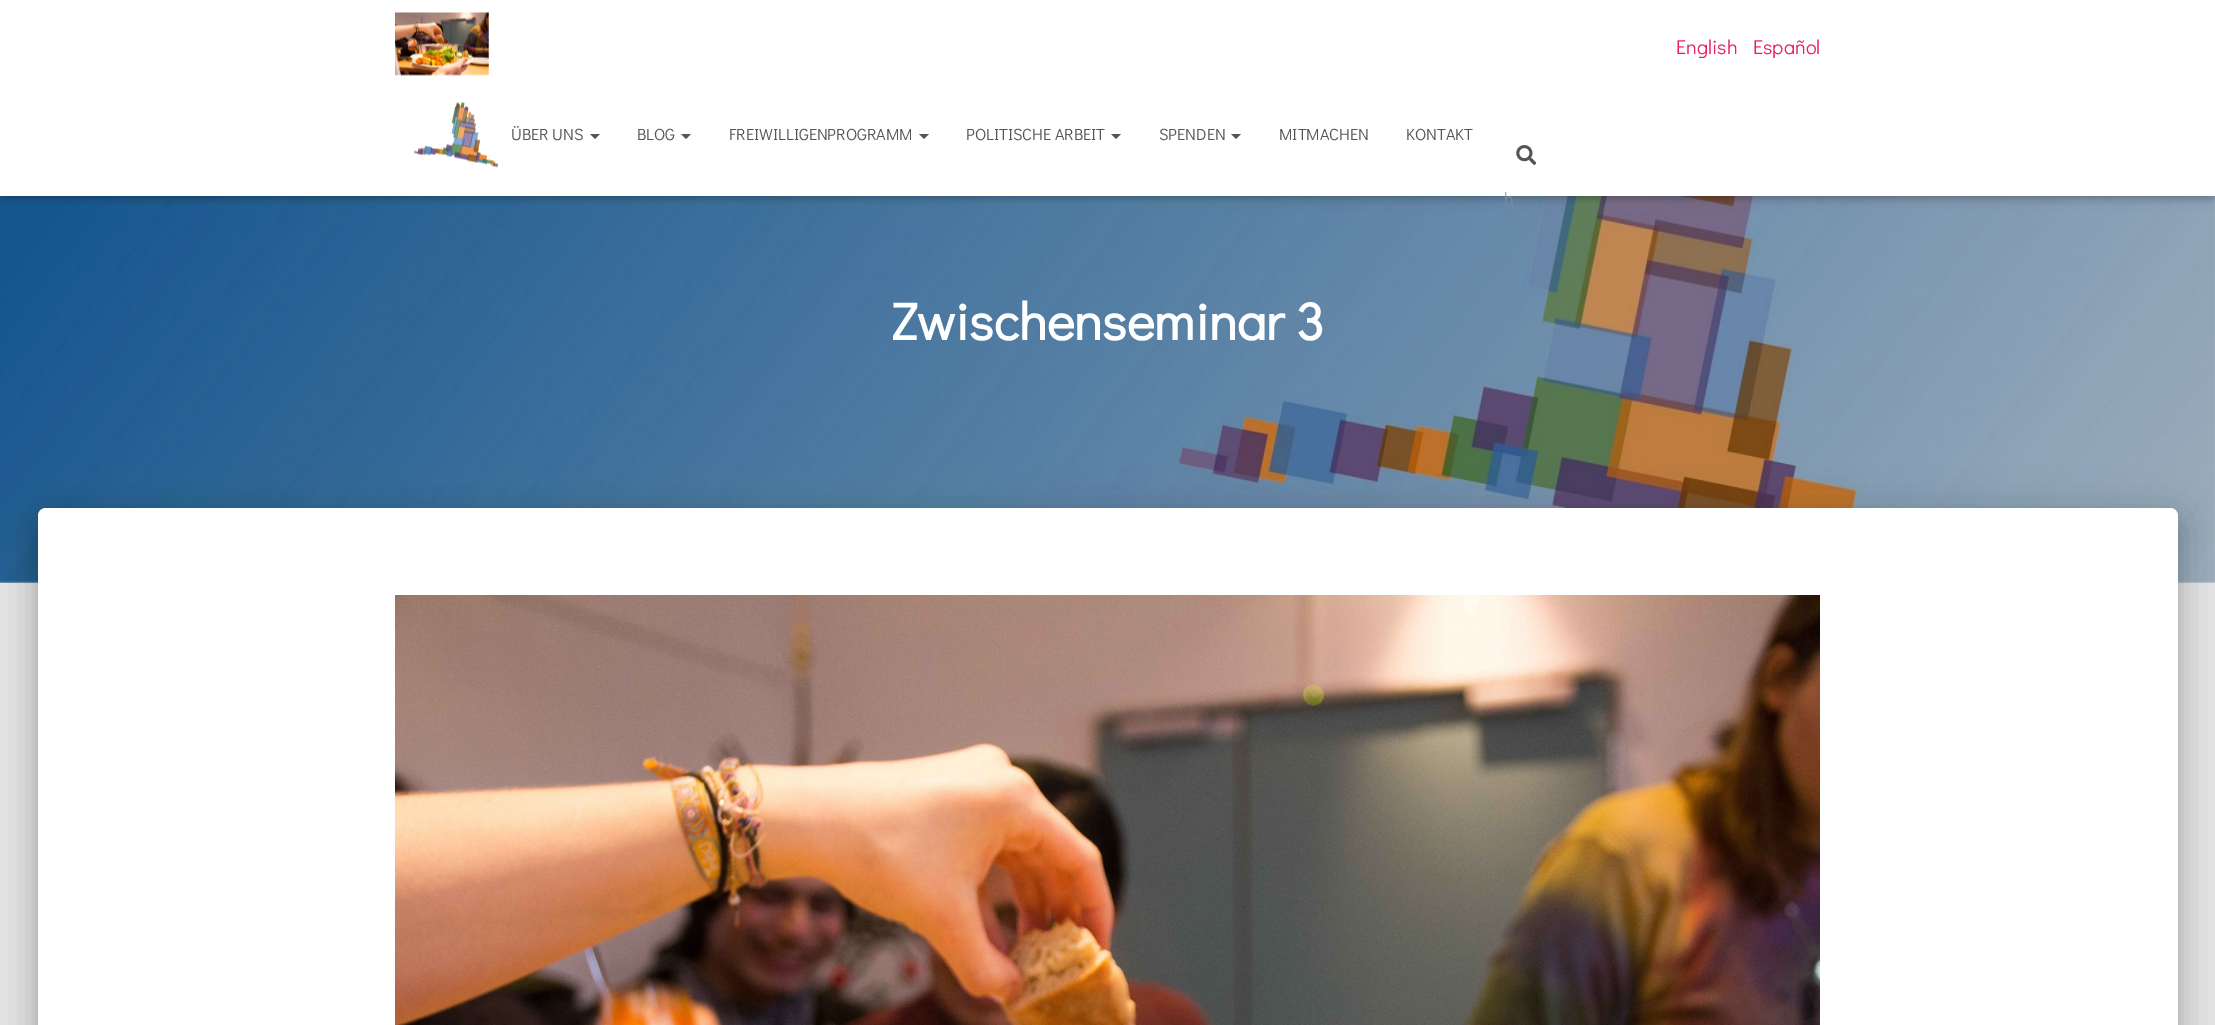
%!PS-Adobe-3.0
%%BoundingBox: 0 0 2215 1025
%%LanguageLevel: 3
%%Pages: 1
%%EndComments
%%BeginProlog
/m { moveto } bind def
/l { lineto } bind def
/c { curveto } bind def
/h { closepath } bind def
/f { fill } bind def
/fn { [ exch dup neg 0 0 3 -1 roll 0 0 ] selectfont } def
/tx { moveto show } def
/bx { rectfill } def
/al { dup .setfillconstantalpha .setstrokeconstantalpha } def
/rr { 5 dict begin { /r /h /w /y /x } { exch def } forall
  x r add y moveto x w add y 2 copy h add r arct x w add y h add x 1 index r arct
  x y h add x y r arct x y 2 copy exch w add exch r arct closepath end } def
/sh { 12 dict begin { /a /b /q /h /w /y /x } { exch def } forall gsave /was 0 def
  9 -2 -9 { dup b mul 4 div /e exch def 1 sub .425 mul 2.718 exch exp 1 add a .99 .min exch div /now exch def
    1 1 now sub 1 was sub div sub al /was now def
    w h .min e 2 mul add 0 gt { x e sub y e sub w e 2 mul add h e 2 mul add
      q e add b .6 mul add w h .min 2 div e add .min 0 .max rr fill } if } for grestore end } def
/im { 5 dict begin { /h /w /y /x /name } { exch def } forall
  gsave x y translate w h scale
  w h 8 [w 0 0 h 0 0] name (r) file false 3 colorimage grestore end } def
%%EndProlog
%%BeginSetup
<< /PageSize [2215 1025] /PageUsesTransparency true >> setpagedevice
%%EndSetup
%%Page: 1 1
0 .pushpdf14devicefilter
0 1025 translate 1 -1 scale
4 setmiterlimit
0.898 setgray
0 0 2215 1025 bx
(image3.raw) 0 196 2215 387 im
0 setgray
3 8 2210 191 0 3 0.1 sh
0 1 2215 197 0 6 0.12 sh
8 9 2200 181 0 6 0.42 sh
1 setgray
0 0 2215 196 bx
(image0.raw) 395 12 94 64 im
/DidactGothic-Regular 20 fn
0.914 0.118 0.388 setrgbcolor
(English) 1676 54 tx
(Español) 1753 54 tx
(image1.raw) 414 102 84 66 im
/DidactGothic-Regular 16.25 fn
0.333 setgray
(ÜBER UNS) 511 140 tx
590 134 m 600 134 l 595 139 l h f
(BLOG) 637 140 tx
681 134 m 691 134 l 686 139 l h f
(FREIWILLIGENPROGRAMM) 729 140 tx
919 134 m 929 134 l 924 139 l h f
(POLITISCHE ARBEIT) 966 140 tx
1111 134 m 1121 134 l 1116 139 l h f
(SPENDEN) 1159 140 tx
1231 134 m 1241 134 l 1236 139 l h f
(MITMACHEN) 1279 140 tx
(KONTAKT) 1406 140 tx
(image2.raw) 1516 145 20 20 im
/DidactGothic-Regular 18 fn
0.455 0.561 0.659 setrgbcolor
(h) 1504 205 tx
/DidactGothic-Bold 52.5 fn
1 setgray
(Zwischenseminar 3) 891 340 tx
0 setgray
44 524 2127 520 1 6 0.2 sh
31 509 2153 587 14 19 0.12 sh
35 525 2145 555 10 15 0.14 sh
1 setgray
46 508 m 2170 508 l 2174.5 508 2178 511.5 2178 516 c 2178 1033 l 38 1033 l 38 516 l 38 511.5 41.5 508 46 508 c h f
(image4.raw) 395 595 1425 430 im
.poppdf14devicefilter showpage
%%EOF
